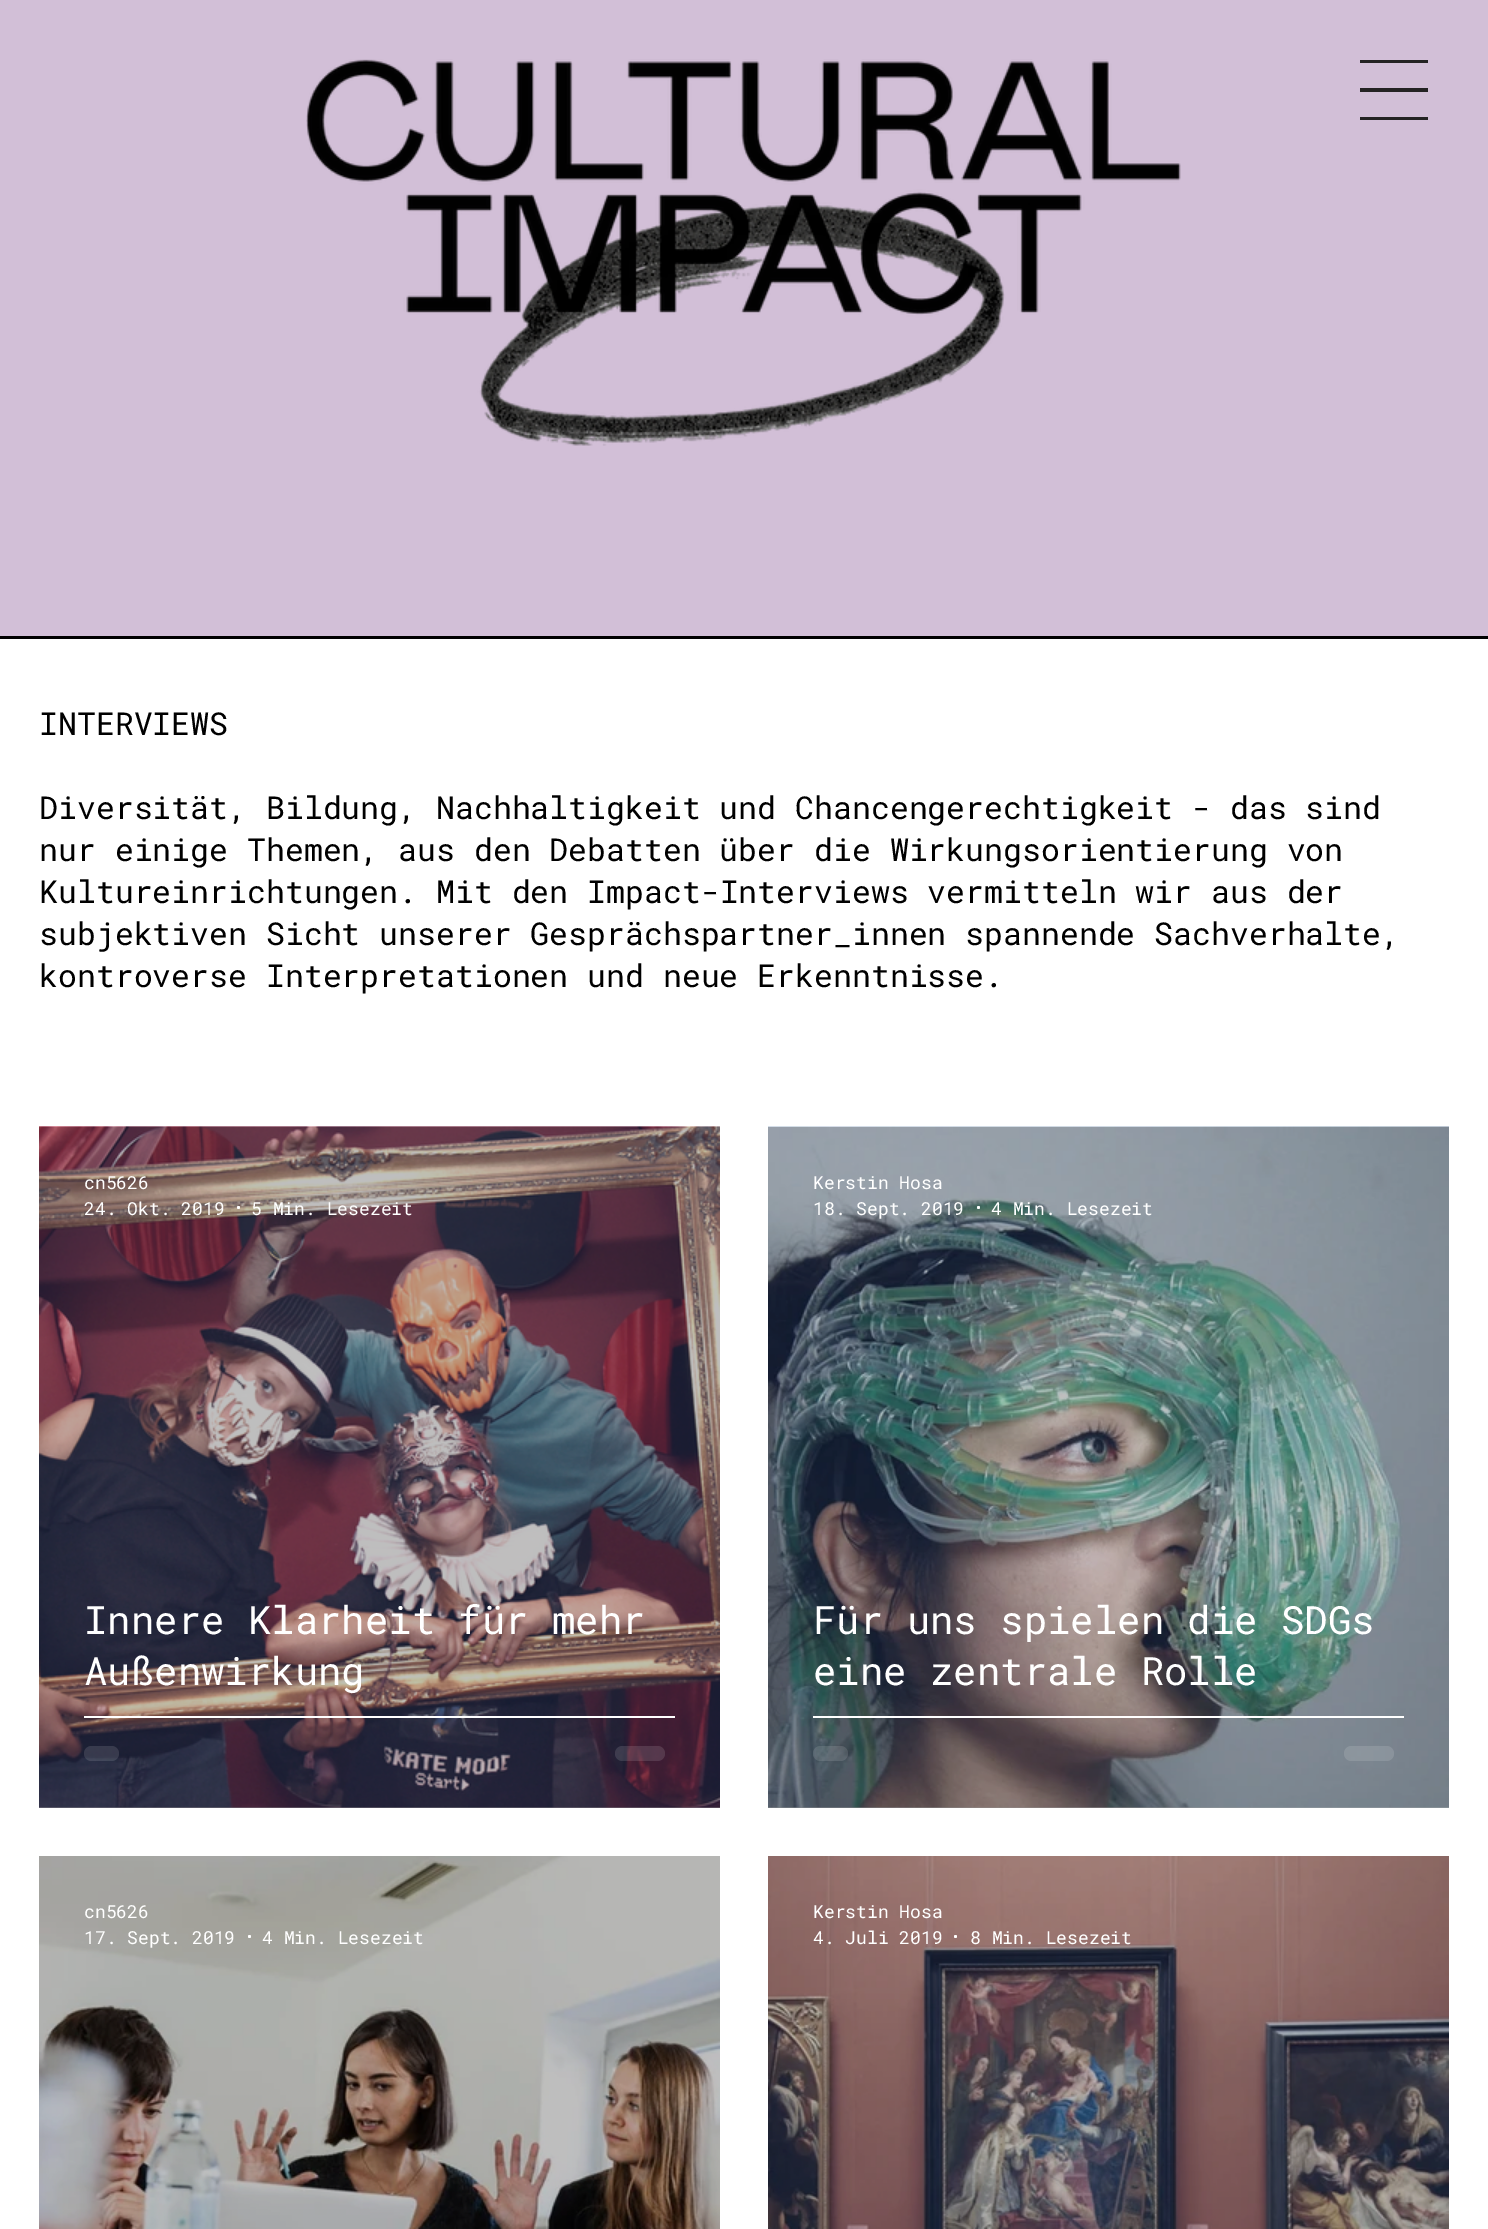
%!PS-Adobe-3.0
%%BoundingBox: 0 0 1488 2229
%%LanguageLevel: 3
%%Pages: 1
%%EndComments
%%BeginProlog
/f { fill } bind def
/fn { [ exch dup neg 0 0 3 -1 roll 0 0 ] selectfont } def
/tx { moveto show } def
/bx { rectfill } def
/al { dup .setfillconstantalpha .setstrokeconstantalpha } def
/ci { newpath 0 360 arc closepath } def
/rr { 5 dict begin { /r /h /w /y /x } { exch def } forall
  x r add y moveto x w add y 2 copy h add r arct x w add y h add x 1 index r arct
  x y h add x y r arct x y 2 copy exch w add exch r arct closepath end } def
/im { 5 dict begin { /h /w /y /x /name } { exch def } forall
  gsave x y translate w h scale
  w h 8 [w 0 0 h 0 0] name (r) file false 3 colorimage grestore end } def
%%EndProlog
%%BeginSetup
<< /PageSize [1488 2229] /PageUsesTransparency true >> setpagedevice
%%EndSetup
%%Page: 1 1
0 .pushpdf14devicefilter
0 2229 translate 1 -1 scale
4 setmiterlimit
1 setgray
0 0 1488 2229 bx
0.824 0.749 0.843 setrgbcolor
0 0 1488 636 bx
0 setgray
0 636 1488 3 bx
(image0.raw) 306 59 875 387 im
0.141 0.137 0.137 setrgbcolor
1360 60 68 3 bx
1360 88 68 4 bx
1360 117 68 3 bx
/RobotoMono-Regular 31.5 fn
0 setgray
(INTERVIEWS) 39 735 tx
(Diversität, Bildung, Nachhaltigkeit und Chancengerechtigkeit - das sind) 39 819 tx
(nur einige Themen, aus den Debatten über die Wirkungsorientierung von) 39 861 tx
(Kultureinrichtungen. Mit den Impact-Interviews vermitteln wir aus der) 39 903 tx
(subjektiven Sicht unserer Gesprächspartner_innen spannende Sachverhalte,) 39 945 tx
(kontroverse Interpretationen und neue Erkenntnisse.) 39 987 tx
(image1.raw) 39 1126 681 682 im
(image2.raw) 39 1126 681 682 im
/RobotoMono-Regular 18 fn
1 setgray
(cn5626) 84 1189 tx
(24. Okt. 2019) 84 1215 tx
238.5 1207.5 1.5 ci f
(5 Min. Lesezeit) 251 1215 tx
/RobotoMono-Regular 39 fn
(Innere Klarheit für mehr) 84 1634 tx
(Außenwirkung) 84 1685 tx
84 1716 591 2 bx
0.12 al
84 1746 35 15 7.5 rr f
615 1746 50 15 7.5 rr f
1 al
(image3.raw) 768 1126 681 682 im
(image4.raw) 768 1126 681 682 im
/RobotoMono-Regular 18 fn
(Kerstin Hosa) 813 1189 tx
(18. Sept. 2019) 813 1215 tx
978.5 1207.5 1.5 ci f
(4 Min. Lesezeit) 991 1215 tx
/RobotoMono-Regular 39 fn
(Für uns spielen die SDGs) 813 1634 tx
(eine zentrale Rolle) 813 1685 tx
813 1716 591 2 bx
0.12 al
813 1746 35 15 7.5 rr f
1344 1746 50 15 7.5 rr f
1 al
(image5.raw) 39 1856 681 373 im
/RobotoMono-Regular 18 fn
(cn5626) 84 1918 tx
(17. Sept. 2019) 84 1944 tx
249.5 1936.5 1.5 ci f
(4 Min. Lesezeit) 262 1944 tx
(image6.raw) 768 1856 681 373 im
(Kerstin Hosa) 813 1918 tx
(4. Juli 2019) 813 1944 tx
955.5 1936.5 1.5 ci f
(8 Min. Lesezeit) 970 1944 tx
.poppdf14devicefilter showpage
%%EOF
